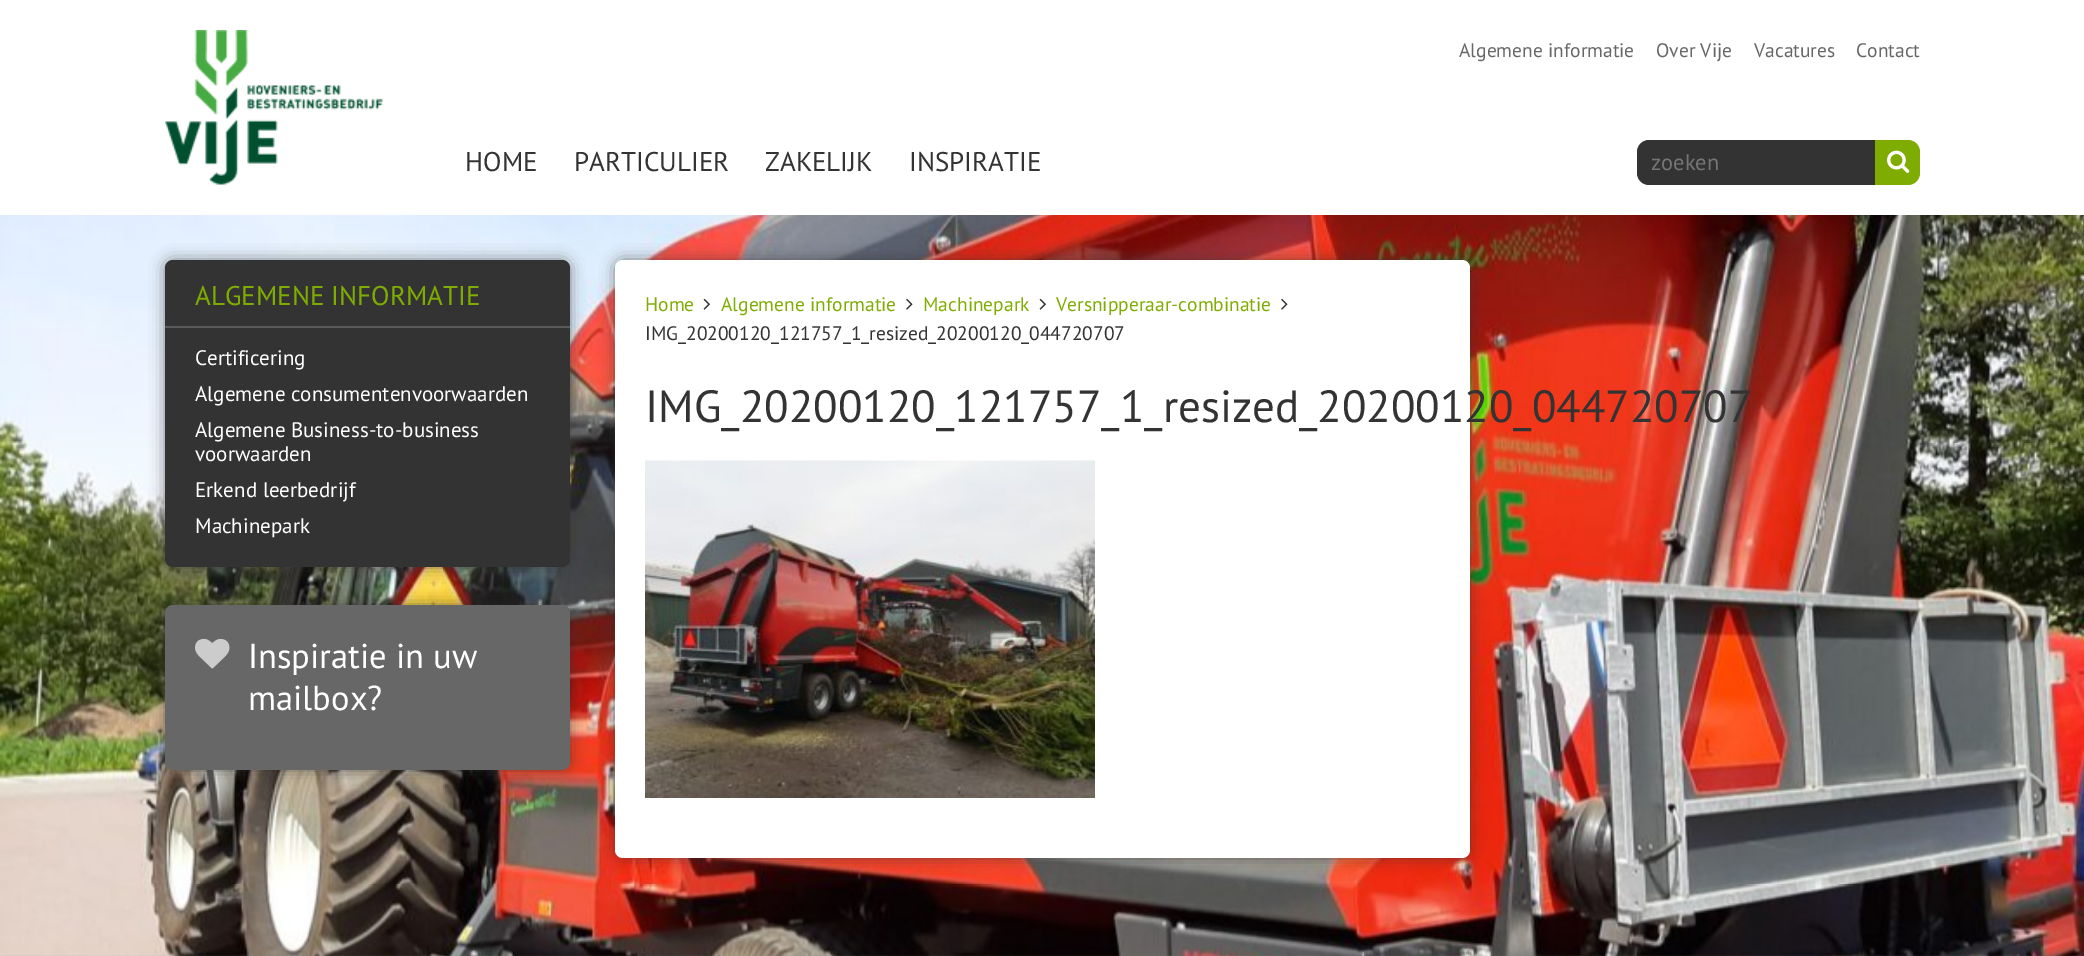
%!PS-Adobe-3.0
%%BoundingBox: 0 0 2084 956
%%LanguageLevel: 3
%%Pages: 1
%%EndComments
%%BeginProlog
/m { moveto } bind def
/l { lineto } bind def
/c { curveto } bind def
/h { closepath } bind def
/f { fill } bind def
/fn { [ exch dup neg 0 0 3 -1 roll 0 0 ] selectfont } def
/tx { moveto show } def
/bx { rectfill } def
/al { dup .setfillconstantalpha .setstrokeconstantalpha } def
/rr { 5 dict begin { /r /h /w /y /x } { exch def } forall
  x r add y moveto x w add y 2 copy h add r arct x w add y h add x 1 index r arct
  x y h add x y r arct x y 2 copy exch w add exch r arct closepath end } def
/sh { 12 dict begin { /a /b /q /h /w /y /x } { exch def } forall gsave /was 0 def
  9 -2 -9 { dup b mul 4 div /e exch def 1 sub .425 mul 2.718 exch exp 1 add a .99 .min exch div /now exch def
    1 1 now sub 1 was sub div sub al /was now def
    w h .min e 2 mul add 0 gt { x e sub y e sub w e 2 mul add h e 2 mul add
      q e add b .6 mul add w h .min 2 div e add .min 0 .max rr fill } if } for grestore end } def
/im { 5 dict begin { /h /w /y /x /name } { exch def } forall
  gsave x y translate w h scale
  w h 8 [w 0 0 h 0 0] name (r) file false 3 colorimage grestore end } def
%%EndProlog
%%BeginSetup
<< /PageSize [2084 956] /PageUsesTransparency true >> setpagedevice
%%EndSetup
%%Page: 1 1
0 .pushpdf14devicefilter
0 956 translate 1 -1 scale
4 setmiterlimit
1 setgray
0 0 2084 956 bx
(image0.raw) 0 215 2084 741 im
(image1.raw) 165 30 218 155 im
/PTSans-Regular 19.5 fn
0.404 setgray
(Algemene informatie) 1459 57 tx
(Over Vije) 1656 57 tx
(Vacatures) 1754 57 tx
(Contact) 1856 57 tx
/PTSans-Regular 27 fn
0.2 setgray
(HOME) 465 171 tx
(PARTICULIER) 574 171 tx
(ZAKELIJK) 765 171 tx
(INSPIRATIE) 909 171 tx
1649 140 m 1897.5 140 l 1910 140 1920 150 1920 162.5 c 1920 175 1910 185 1897.5 185 c 1649 185 l 1642.5 185 1637 179.5 1637 173 c 1637 152 l 1637 145.5 1642.5 140 1649 140 c h f
/PTSans-Regular 22.5 fn
0.459 setgray
(zoeken) 1651 170 tx
0.498 0.675 0 setrgbcolor
1875 140 m 1908 140 l 1914.5 140 1920 145.5 1920 152 c 1920 173 l 1920 179.5 1914.5 185 1908 185 c 1875 185 l h f
(image2.raw) 1887 150 23 23 im
0.196 setgray
165 260 405 307 8 7.5 0.6 sh
0.2 setgray
165 260 405 307 8 rr f
0.353 setgray
165 326 405 2 bx
/PTSans-Regular 27 fn
0.498 0.675 0 setrgbcolor
(ALGEMENE INFORMATIE) 195 305 tx
/PTSans-Regular 21 fn
1 setgray
(Certificering) 195 365 tx
(Algemene consumentenvoorwaarden) 195 401 tx
(Algemene Business-to-business) 195 437 tx
(voorwaarden) 195 461 tx
(Erkend leerbedrijf) 195 497 tx
(Machinepark) 195 533 tx
0.196 setgray
165 605 405 165 8 7.5 0.6 sh
0.404 setgray
165 605 405 165 8 rr f
(image3.raw) 195 638 35 31 im
/PTSans-Regular 34.5 fn
1 setgray
(Inspiratie in uw) 248 668 tx
(mailbox?) 248 710 tx
0.196 setgray
615 260 855 598 8 7.5 0.6 sh
1 setgray
615 260 855 598 8 rr f
/PTSans-Regular 19.5 fn
0.498 0.675 0 setrgbcolor
(Home) 645 311 tx
(image4.raw) 703 298 7 12 im
(Algemene informatie) 721 311 tx
(image5.raw) 906 298 7 12 im
(Machinepark) 923 311 tx
(image4.raw) 1039 298 7 12 im
(Versnipperaar-combinatie) 1056 311 tx
(image5.raw) 1281 298 7 12 im
0.2 setgray
(IMG_20200120_121757_1_resized_20200120_044720707) 645 340 tx
/PTSans-Regular 45 fn
(IMG_20200120_121757_1_resized_20200120_044720707) 645 422 tx
(image6.raw) 645 460 450 338 im
.poppdf14devicefilter showpage
%%EOF
